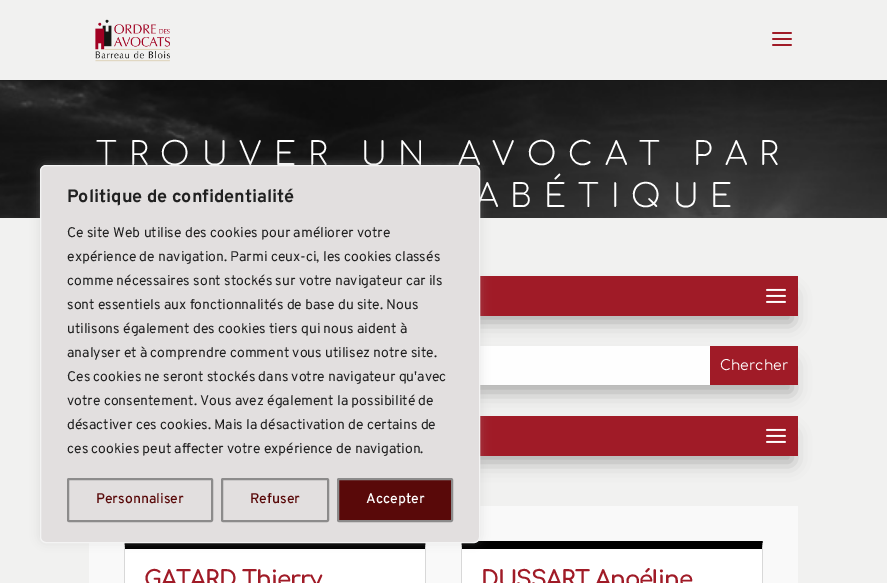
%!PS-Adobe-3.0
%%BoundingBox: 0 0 887 583
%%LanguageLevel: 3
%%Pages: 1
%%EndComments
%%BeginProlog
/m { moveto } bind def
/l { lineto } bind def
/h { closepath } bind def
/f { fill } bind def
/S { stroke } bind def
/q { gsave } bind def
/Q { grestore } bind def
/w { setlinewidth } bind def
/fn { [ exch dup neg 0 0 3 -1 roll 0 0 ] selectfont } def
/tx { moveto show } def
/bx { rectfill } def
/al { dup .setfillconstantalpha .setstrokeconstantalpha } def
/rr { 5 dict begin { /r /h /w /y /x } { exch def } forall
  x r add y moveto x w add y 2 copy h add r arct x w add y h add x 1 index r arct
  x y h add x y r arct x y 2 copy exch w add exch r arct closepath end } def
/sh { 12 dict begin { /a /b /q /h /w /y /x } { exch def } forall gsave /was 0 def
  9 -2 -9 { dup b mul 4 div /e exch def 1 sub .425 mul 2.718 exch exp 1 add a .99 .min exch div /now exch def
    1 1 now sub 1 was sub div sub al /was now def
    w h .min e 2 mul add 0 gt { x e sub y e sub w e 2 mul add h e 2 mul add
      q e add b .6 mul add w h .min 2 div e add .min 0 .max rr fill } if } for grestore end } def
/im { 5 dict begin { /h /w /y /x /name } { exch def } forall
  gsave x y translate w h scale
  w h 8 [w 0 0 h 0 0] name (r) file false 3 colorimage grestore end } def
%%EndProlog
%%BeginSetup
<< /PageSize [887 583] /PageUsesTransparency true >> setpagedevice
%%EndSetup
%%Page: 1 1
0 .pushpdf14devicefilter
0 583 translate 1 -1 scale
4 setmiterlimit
0.945 0.945 0.941 setrgbcolor
0 0 887 583 bx
(image2.raw) 0 80 887 138 im
0.1 al
0 setgray
0 80 856 1 bx
1 al
(image0.raw) 95 19 75 43 im
(image1.raw) 772 32 20 14 im
/Comfortaa-Light 32 fn
1 setgray
96 165 m 12 0 (TROUVER UN AVOCAT PAR) ashow
476 207 m 12 0 (ABÉTIQUE) ashow
0 setgray
95 294 697 28 0 9 0.3 sh
0.627 0.106 0.153 setrgbcolor
480 276 318 40 bx
(image3.raw) 766 288 20 15 im
0 setgray
95 364 697 28 0 9 0.3 sh
0.996 setgray
480 346 230 39 bx
0.627 0.106 0.153 setrgbcolor
710 346 88 39 bx
/Comfortaa-Regular 14 fn
1 setgray
(Chercher) 720 370 tx
0 setgray
95 434 697 28 0 9 0.3 sh
0.627 0.106 0.153 setrgbcolor
480 416 318 40 bx
(image3.raw) 766 428 20 15 im
0.976 setgray
89 506 709 77 bx
1 setgray
125 549 300 34 bx
0 setgray
124 541 m 426 541 l 425 549 l 125 549 l h f
0.847 setgray
426 541 m 426 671 l 425 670 l 425 549 l h f
124 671 m 124 541 l 125 549 l 125 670 l h f
/Comfortaa-Bold 23 fn
0.627 0.106 0.153 setrgbcolor
144 587 m -1 0 (GATARD Thierry) ashow
1 setgray
462 549 300 34 bx
0 setgray
461 541 m 763 541 l 762 549 l 462 549 l h f
0.847 setgray
763 541 m 763 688 l 762 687 l 762 549 l h f
461 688 m 461 541 l 462 549 l 462 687 l h f
0.627 0.106 0.153 setrgbcolor
481 587 m -1 0 (DUSSART Angéline) ashow
0.675 0.671 0.671 setrgbcolor
40 164 440 378 6 5 0.3 sh
0.886 0.875 0.875 setrgbcolor
40.5 165.5 439 377 5.5 rr q f Q
0.957 setgray
S
/Overpass-Bold 18 fn
0.129 setgray
(Politique de confidentialité) 67 202 tx
/Overpass-Regular 14 fn
(Ce site Web utilise des cookies pour améliorer votre) 67 237 tx
(expérience de navigation. Parmi ceux-ci, les cookies classés) 67 261 tx
(comme nécessaires sont stockés sur votre navigateur car ils) 67 285 tx
(sont essentiels aux fonctionnalités de base du site. Nous) 67 309 tx
(utilisons également des cookies tiers qui nous aident à) 67 333 tx
(analyser et à comprendre comment vous utilisez notre site.) 67 357 tx
(Ces cookies ne seront stockés dans votre navigateur qu'avec) 67 381 tx
(votre consentement. Vous avez également la possibilité de) 67 405 tx
(désactiver ces cookies. Mais la désactivation de certains de) 67 429 tx
(ces cookies peut affecter votre expérience de navigation.) 67 453 tx
0.549 0.545 0.545 setrgbcolor
2 w
68 479 144 42 1 rr S
/Overpass-Medium 14 fn
0.349 0.035 0.035 setrgbcolor
(Personnaliser) 96 503 tx
0.549 0.545 0.545 setrgbcolor
222 479 106 42 1 rr S
0.349 0.035 0.035 setrgbcolor
(Refuser) 250 503 tx
338 479 114 42 1 rr q f Q
0.549 0.545 0.545 setrgbcolor
S
1 setgray
(Accepter) 366 503 tx
.poppdf14devicefilter showpage
%%EOF
